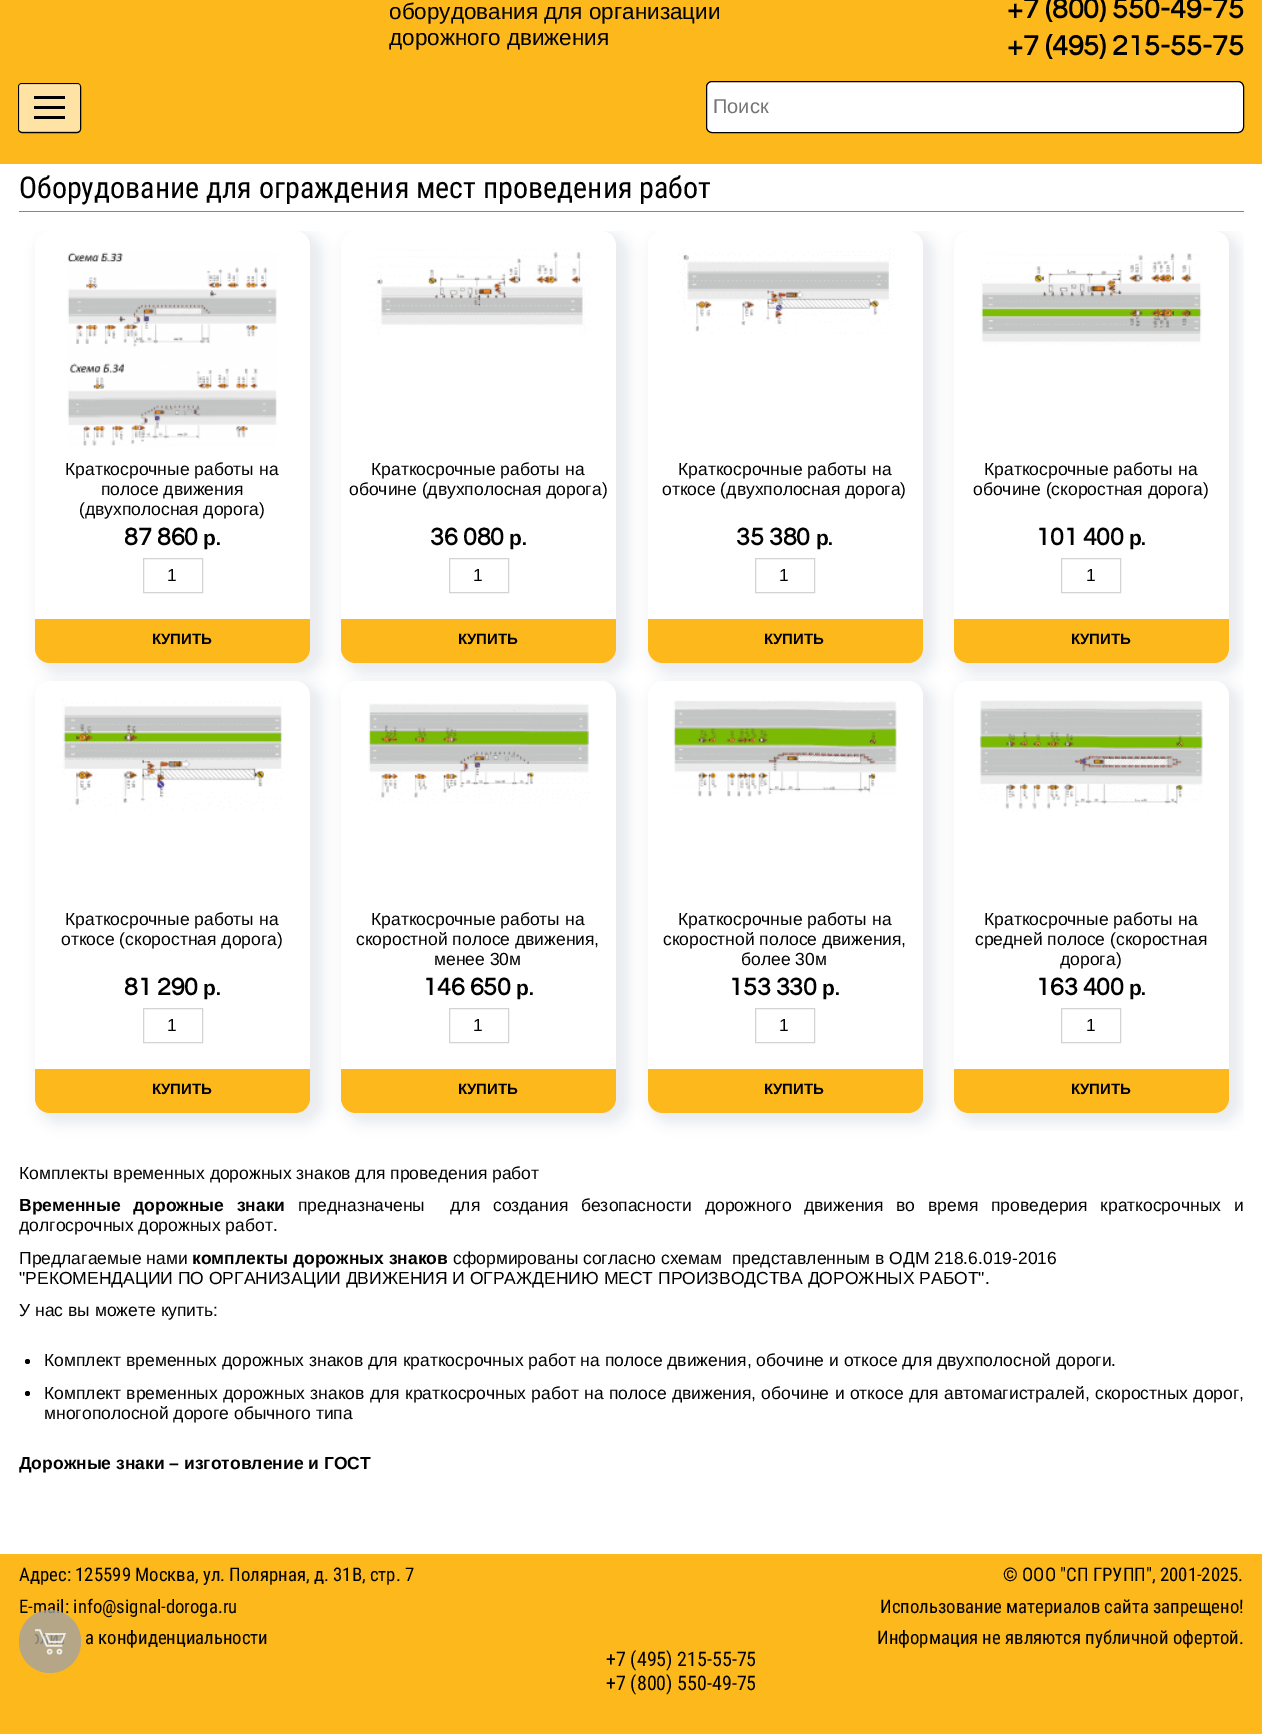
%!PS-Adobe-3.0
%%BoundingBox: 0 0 1262 1734
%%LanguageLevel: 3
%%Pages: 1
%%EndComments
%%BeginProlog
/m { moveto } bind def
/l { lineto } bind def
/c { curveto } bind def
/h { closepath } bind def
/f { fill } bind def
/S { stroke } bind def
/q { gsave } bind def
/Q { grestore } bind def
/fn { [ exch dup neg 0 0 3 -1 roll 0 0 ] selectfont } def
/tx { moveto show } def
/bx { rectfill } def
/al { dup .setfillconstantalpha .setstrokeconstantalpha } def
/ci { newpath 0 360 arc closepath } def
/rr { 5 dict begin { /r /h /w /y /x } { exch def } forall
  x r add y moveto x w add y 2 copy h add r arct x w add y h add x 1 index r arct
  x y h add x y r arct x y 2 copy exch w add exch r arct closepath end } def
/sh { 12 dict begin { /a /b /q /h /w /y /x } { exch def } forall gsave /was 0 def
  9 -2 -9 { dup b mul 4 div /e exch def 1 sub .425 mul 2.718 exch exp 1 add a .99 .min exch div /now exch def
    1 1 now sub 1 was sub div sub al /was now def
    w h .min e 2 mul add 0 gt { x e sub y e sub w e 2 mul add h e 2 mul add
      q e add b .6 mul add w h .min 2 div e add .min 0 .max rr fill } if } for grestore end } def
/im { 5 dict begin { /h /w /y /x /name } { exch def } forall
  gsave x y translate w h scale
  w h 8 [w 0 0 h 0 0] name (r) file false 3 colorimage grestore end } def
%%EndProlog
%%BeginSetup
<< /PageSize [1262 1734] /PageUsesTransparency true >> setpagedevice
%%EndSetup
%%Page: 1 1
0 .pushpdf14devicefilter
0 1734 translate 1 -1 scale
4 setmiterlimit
1 setgray
0 0 1262 1734 bx
0.992 0.722 0.11 setrgbcolor
0 0 1262 164 bx
/LiberationSans-Regular 22.5 fn
0 setgray
(оборудования для организации) 389 19 tx
(дорожного движения) 389 45 tx
/Questrial-Bold 28.75 fn
(+7 \(800\) 550-49-75) 1007 18 tx
(+7 \(495\) 215-55-75) 1007 55 tx
18.5 83.5 62 49 3.5 rr S
0.6 al
1 setgray
19 84 61 47 2.5 rr f
1 al
0 setgray
34 96 31 3 bx
34 116 31 3 bx
34 106 31 3 bx
1 setgray
706.5 81.5 537 51 5.5 rr q f Q
0 setgray
S
/LiberationSans-Regular 20 fn
0.459 setgray
(Поиск) 713 113 tx
0.992 0.722 0.11 setrgbcolor
0 1554 1262 180 bx
/RobotoCondensed-Regular 18.75 fn
0 setgray
(E-mail: info@signal-doroga.ru) 19 1613 tx
0.8 al
0.635 setgray
19 1610 62 63 31 rr f
1 al
(image0.raw) 35 1629 31 26 im
0.529 setgray
19 211 1225 1 bx
/RobotoCondensed-Regular 30 fn
0 setgray
(Оборудование для ограждения мест проведения работ) 19 198 tx
q
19 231 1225 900 rectclip
0.133 0.235 0.314 setrgbcolor
38 233 285 441 20 6 0.09 sh
Q
1 setgray
35 231 275 432 15 rr f
(image1.raw) 67 252 210 194 im
/LiberationSans-Regular 17.5 fn
0 setgray
(Краткосрочные работы на) 65 475 tx
(полосе движения) 101 495 tx
(\(двухполосная дорога\)) 79 515 tx
/Questrial-Bold 25 fn
(87 860) 124 545 tx
/LiberationSans-Bold 21 fn
(р) 203 545 tx
/Questrial-Bold 21 fn
(.) 216 545 tx
0.827 setgray
143.5 558.5 59 34 rectstroke
/LiberationSans-Regular 17.5 fn
0 setgray
(1) 167 581 tx
0.992 0.722 0.11 setrgbcolor
35 619 m 310 619 l 310 648 l 310 656.5 303.5 663 295 663 c 50 663 l 41.5 663 35 656.5 35 648 c h f
/LiberationSans-Bold 15 fn
0 setgray
(КУПИТЬ) 152 644 tx
q
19 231 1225 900 rectclip
0.133 0.235 0.314 setrgbcolor
344 233 285 441 20 6 0.09 sh
Q
1 setgray
341 231 275 432 15 rr f
(image2.raw) 369 249 222 86 im
/LiberationSans-Regular 17.5 fn
0 setgray
(Краткосрочные работы на) 371 475 tx
(обочине \(двухполосная дорога\)) 349 495 tx
/Questrial-Bold 25 fn
(36 080) 430 545 tx
/LiberationSans-Bold 21 fn
(р) 509 545 tx
/Questrial-Bold 21 fn
(.) 522 545 tx
0.827 setgray
449.5 558.5 59 34 rectstroke
/LiberationSans-Regular 17.5 fn
0 setgray
(1) 473 581 tx
0.992 0.722 0.11 setrgbcolor
341 619 m 616 619 l 616 648 l 616 656.5 609.5 663 601 663 c 356 663 l 347.5 663 341 656.5 341 648 c h f
/LiberationSans-Bold 15 fn
0 setgray
(КУПИТЬ) 458 644 tx
q
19 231 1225 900 rectclip
0.133 0.235 0.314 setrgbcolor
650 233 285 441 20 6 0.09 sh
Q
1 setgray
648 231 275 432 15 rr f
(image3.raw) 678 248 217 86 im
/LiberationSans-Regular 17.5 fn
0 setgray
(Краткосрочные работы на) 678 475 tx
(откосе \(двухполосная дорога\)) 662 495 tx
/Questrial-Bold 25 fn
(35 380) 736 545 tx
/LiberationSans-Bold 21 fn
(р) 816 545 tx
/Questrial-Bold 21 fn
(.) 828 545 tx
0.827 setgray
755.5 558.5 59 34 rectstroke
/LiberationSans-Regular 17.5 fn
0 setgray
(1) 779 581 tx
0.992 0.722 0.11 setrgbcolor
648 619 m 923 619 l 923 648 l 923 656.5 916.5 663 908 663 c 663 663 l 654.5 663 648 656.5 648 648 c h f
/LiberationSans-Bold 15 fn
0 setgray
(КУПИТЬ) 764 644 tx
q
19 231 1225 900 rectclip
0.133 0.235 0.314 setrgbcolor
956 233 285 441 20 6 0.09 sh
Q
1 setgray
954 231 275 432 15 rr f
(image4.raw) 980 253 222 93 im
/LiberationSans-Regular 17.5 fn
0 setgray
(Краткосрочные работы на) 984 475 tx
(обочине \(скоростная дорога\)) 973 495 tx
/Questrial-Bold 25 fn
(101 400) 1036 545 tx
/LiberationSans-Bold 21 fn
(р) 1129 545 tx
/Questrial-Bold 21 fn
(.) 1141 545 tx
0.827 setgray
1061.5 558.5 59 34 rectstroke
/LiberationSans-Regular 17.5 fn
0 setgray
(1) 1086 581 tx
0.992 0.722 0.11 setrgbcolor
954 619 m 1229 619 l 1229 648 l 1229 656.5 1222.5 663 1214 663 c 969 663 l 960.5 663 954 656.5 954 648 c h f
/LiberationSans-Bold 15 fn
0 setgray
(КУПИТЬ) 1071 644 tx
0.133 0.235 0.314 setrgbcolor
38 683 285 441 20 6 0.09 sh
1 setgray
35 681 275 432 15 rr f
(image5.raw) 60 699 224 111 im
/LiberationSans-Regular 17.5 fn
0 setgray
(Краткосрочные работы на) 65 925 tx
(откосе \(скоростная дорога\)) 61 945 tx
/Questrial-Bold 25 fn
(81 290) 124 995 tx
/LiberationSans-Bold 21 fn
(р) 203 995 tx
/Questrial-Bold 21 fn
(.) 216 995 tx
0.827 setgray
143.5 1008.5 59 34 rectstroke
/LiberationSans-Regular 17.5 fn
0 setgray
(1) 167 1031 tx
0.992 0.722 0.11 setrgbcolor
35 1069 m 310 1069 l 310 1098 l 310 1106.5 303.5 1113 295 1113 c 50 1113 l 41.5 1113 35 1106.5 35 1098 c h f
/LiberationSans-Bold 15 fn
0 setgray
(КУПИТЬ) 152 1094 tx
0.133 0.235 0.314 setrgbcolor
344 683 285 441 20 6 0.09 sh
1 setgray
341 681 275 432 15 rr f
(image6.raw) 368 703 221 101 im
/LiberationSans-Regular 17.5 fn
0 setgray
(Краткосрочные работы на) 371 925 tx
(скоростной полосе движения,) 356 945 tx
(менее 30м) 434 965 tx
/Questrial-Bold 25 fn
(146 650) 423 995 tx
/LiberationSans-Bold 21 fn
(р) 516 995 tx
/Questrial-Bold 21 fn
(.) 529 995 tx
0.827 setgray
449.5 1008.5 59 34 rectstroke
/LiberationSans-Regular 17.5 fn
0 setgray
(1) 473 1031 tx
0.992 0.722 0.11 setrgbcolor
341 1069 m 616 1069 l 616 1098 l 616 1106.5 609.5 1113 601 1113 c 356 1113 l 347.5 1113 341 1106.5 341 1098 c h f
/LiberationSans-Bold 15 fn
0 setgray
(КУПИТЬ) 458 1094 tx
0.133 0.235 0.314 setrgbcolor
650 683 285 441 20 6 0.09 sh
1 setgray
648 681 275 432 15 rr f
(image7.raw) 673 700 224 97 im
/LiberationSans-Regular 17.5 fn
0 setgray
(Краткосрочные работы на) 678 925 tx
(скоростной полосе движения,) 663 945 tx
(более 30м) 741 965 tx
/Questrial-Bold 25 fn
(153 330) 729 995 tx
/LiberationSans-Bold 21 fn
(р) 822 995 tx
/Questrial-Bold 21 fn
(.) 835 995 tx
0.827 setgray
755.5 1008.5 59 34 rectstroke
/LiberationSans-Regular 17.5 fn
0 setgray
(1) 779 1031 tx
0.992 0.722 0.11 setrgbcolor
648 1069 m 923 1069 l 923 1098 l 923 1106.5 916.5 1113 908 1113 c 663 1113 l 654.5 1113 648 1106.5 648 1098 c h f
/LiberationSans-Bold 15 fn
0 setgray
(КУПИТЬ) 764 1094 tx
q
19 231 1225 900 rectclip
0.133 0.235 0.314 setrgbcolor
956 683 285 441 20 6 0.09 sh
Q
1 setgray
954 681 275 432 15 rr f
(image8.raw) 979 700 224 111 im
/LiberationSans-Regular 17.5 fn
0 setgray
(Краткосрочные работы на) 984 925 tx
(средней полосе \(скоростная) 975 945 tx
(дорога\)) 1060 965 tx
/Questrial-Bold 25 fn
(163 400) 1036 995 tx
/LiberationSans-Bold 21 fn
(р) 1129 995 tx
/Questrial-Bold 21 fn
(.) 1141 995 tx
0.827 setgray
1061.5 1008.5 59 34 rectstroke
/LiberationSans-Regular 17.5 fn
0 setgray
(1) 1086 1031 tx
0.992 0.722 0.11 setrgbcolor
954 1069 m 1229 1069 l 1229 1098 l 1229 1106.5 1222.5 1113 1214 1113 c 969 1113 l 960.5 1113 954 1106.5 954 1098 c h f
/LiberationSans-Bold 15 fn
0 setgray
(КУПИТЬ) 1071 1094 tx
/LiberationSans-Regular 17.5 fn
(Комплекты временных дорожных знаков для проведения работ) 19 1179 tx
/LiberationSans-Bold 17.5 fn
19 1211 m 7.75 0 32 (Временные дорожные знаки) widthshow
/LiberationSans-Regular 17.5 fn
298 1211 m 7.75 0 32 (предназначены  для создания безопасности дорожного движения во время проведерия краткосрочных и) widthshow
q
19 170 1225 1346 rectclip
(долгосрочных дорожных работ.) 19 1231 tx
Q
(Предлагаемые нами) 19 1264 tx
/LiberationSans-Bold 17.5 fn
(комплекты дорожных знаков) 192 1264 tx
/LiberationSans-Regular 17.5 fn
(сформированы согласно схемам  представленным в ОДМ 218.6.019-2016) 453 1264 tx
("РЕКОМЕНДАЦИИ ПО ОРГАНИЗАЦИИ ДВИЖЕНИЯ И ОГРАЖДЕНИЮ МЕСТ ПРОИЗВОДСТВА ДОРОЖНЫХ РАБОТ".) 19 1284 tx
(У нас вы можете купить:) 19 1316 tx
27.5 1361.5 2.5 ci f
(Комплект временных дорожных знаков для краткосрочных работ на полосе движения, обочине и откосе для двухполосной дороги.) 44 1366 tx
27.5 1393.5 2.5 ci f
44 1399 m 0.5 0 32 (Комплект временных дорожных знаков для краткосрочных работ на полосе движения, обочине и откосе для автомагистралей, скоростных дорог,) widthshow
(многополосной дороге обычного типа) 44 1419 tx
q
19 170 1225 1346 rectclip
/LiberationSans-Bold 17.5 fn
(Дорожные знаки – изготовление и ГОСТ) 19 1469 tx
Q
/RobotoCondensed-Regular 18.75 fn
(Адрес: 125599 Москва, ул. Полярная, д. 31В, стр. 7) 19 1581 tx
(а конфиденциальности) 85 1644 tx
(© ООО "СП ГРУПП", 2001-2025.) 1003 1581 tx
(Использование материалов сайта запрещено!) 880 1613 tx
(Информация не являются публичной офертой.) 877 1644 tx
/RobotoCondensed-Regular 20 fn
(+7 \(495\) 215-55-75) 606 1666 tx
(+7 \(800\) 550-49-75) 606 1690 tx
.poppdf14devicefilter showpage
%%EOF
